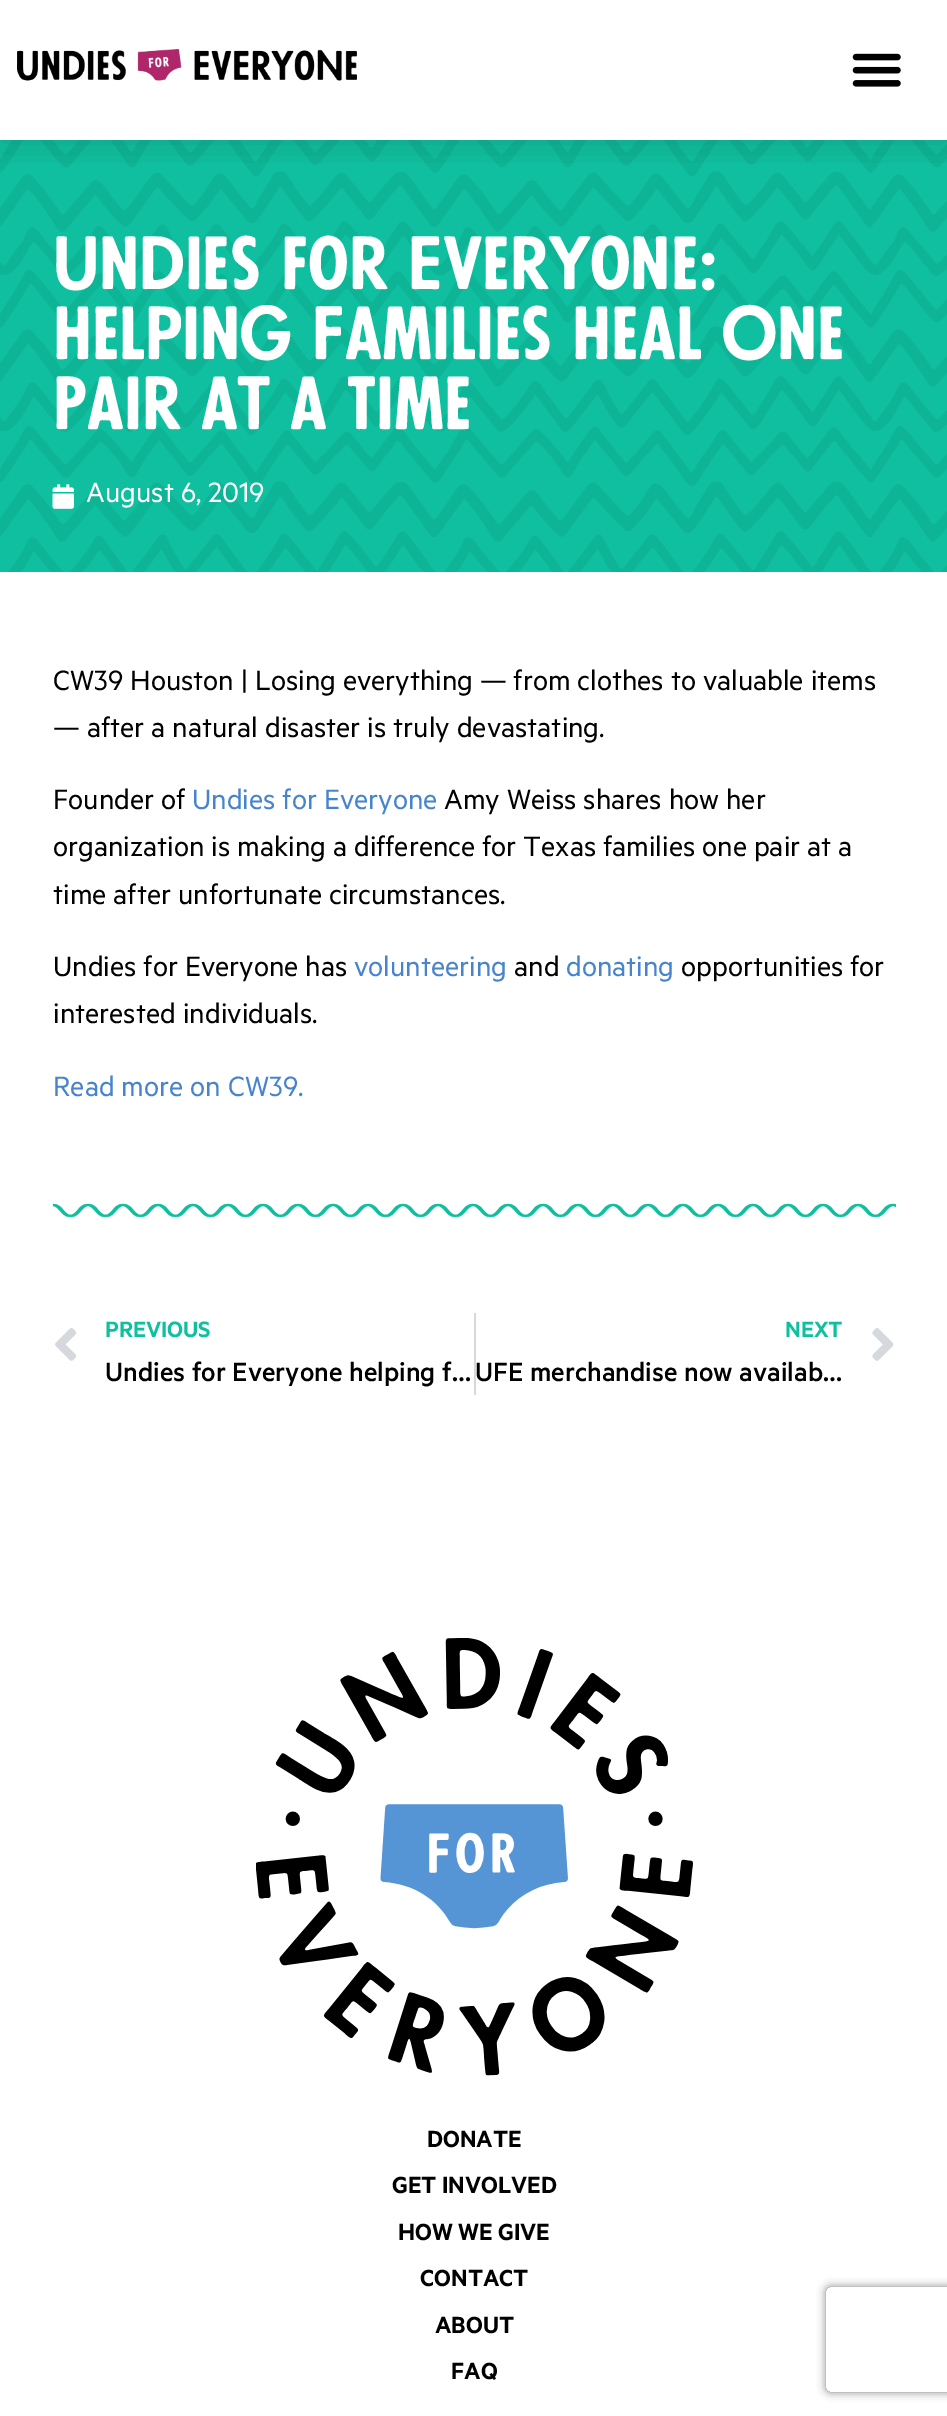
%!PS-Adobe-3.0
%%BoundingBox: 0 0 947 2416
%%LanguageLevel: 3
%%Pages: 1
%%EndComments
%%BeginProlog
/m { moveto } bind def
/l { lineto } bind def
/c { curveto } bind def
/h { closepath } bind def
/q { gsave } bind def
/Q { grestore } bind def
/fn { [ exch dup neg 0 0 3 -1 roll 0 0 ] selectfont } def
/tx { moveto show } def
/bx { rectfill } def
/al { dup .setfillconstantalpha .setstrokeconstantalpha } def
/rr { 5 dict begin { /r /h /w /y /x } { exch def } forall
  x r add y moveto x w add y 2 copy h add r arct x w add y h add x 1 index r arct
  x y h add x y r arct x y 2 copy exch w add exch r arct closepath end } def
/sh { 12 dict begin { /a /b /q /h /w /y /x } { exch def } forall gsave /was 0 def
  9 -2 -9 { dup b mul 4 div /e exch def 1 sub .425 mul 2.718 exch exp 1 add a .99 .min exch div /now exch def
    1 1 now sub 1 was sub div sub al /was now def
    w h .min e 2 mul add 0 gt { x e sub y e sub w e 2 mul add h e 2 mul add
      q e add b .6 mul add w h .min 2 div e add .min 0 .max rr fill } if } for grestore end } def
/im { 5 dict begin { /h /w /y /x /name } { exch def } forall
  gsave x y translate w h scale
  w h 8 [w 0 0 h 0 0] name (r) file false 3 colorimage grestore end } def
%%EndProlog
%%BeginSetup
<< /PageSize [947 2416] /PageUsesTransparency true >> setpagedevice
%%EndSetup
%%Page: 1 1
0 .pushpdf14devicefilter
0 2416 translate 1 -1 scale
4 setmiterlimit
1 setgray
0 0 947 2416 bx
0.059 0.749 0.624 setrgbcolor
0 140 947 432 bx
(image2.raw) 0 140 947 432 im
q
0 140 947 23 rectclip
0 setgray
0 0 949 140 0 21 0.15 sh
Q
(image0.raw) 17 49 340 32 im
(image1.raw) 852 53 49 34 im
/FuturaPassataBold-Bold 70 fn
1 setgray
(Undies for Everyone:) 53 289 tx
(Helping Families Heal One) 53 359 tx
(Pair at a Time) 53 429 tx
(image3.raw) 52 484 22 25 im
/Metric-Regular 31.5 fn
(August 6, 2019) 86 502 tx
0 setgray
(CW39 Houston | Losing everything — from clothes to valuable items) 53 690 tx
(— after a natural disaster is truly devastating.) 53 737 tx
(Founder of) 53 809 tx
0.278 0.518 0.804 setrgbcolor
(Undies for Everyone) 192 809 tx
0 setgray
(Amy Weiss shares how her) 444 809 tx
(organization is making a difference for Texas families one pair at a) 53 856 tx
(time after unfortunate circumstances.) 53 904 tx
(Undies for Everyone has) 53 976 tx
0.278 0.518 0.804 setrgbcolor
(volunteering) 354 976 tx
0 setgray
(and) 514 976 tx
0.278 0.518 0.804 setrgbcolor
(donating) 566 976 tx
0 setgray
(opportunities for) 681 976 tx
(interested individuals.) 53 1023 tx
0.278 0.518 0.804 setrgbcolor
(Read more on CW39.) 53 1096 tx
(image4.raw) 52 1203 844 14 im
(image5.raw) 55 1328 22 33 im
/Metric-SemiBold 25 fn
0.059 0.749 0.624 setrgbcolor
(PREVIOUS) 105 1337 tx
/Metric-Medium 29.75 fn
0 setgray
(Undies for Everyone helping f…) 105 1381 tx
0.835 0.847 0.863 setrgbcolor
474 1313 2 82 bx
/Metric-SemiBold 25 fn
0.059 0.749 0.624 setrgbcolor
(NEXT) 785 1337 tx
/Metric-Medium 29.75 fn
0 setgray
(UFE merchandise now availab…) 475 1381 tx
(image6.raw) 872 1328 22 33 im
(image7.raw) 256 1638 437 438 im
/Metric-SemiBold 26.25 fn
(DONATE) 427 2147 tx
(GET INVOLVED) 392 2193 tx
(HOW WE GIVE) 398 2240 tx
(CONTACT) 420 2286 tx
(ABOUT) 435 2333 tx
(FAQ) 451 2379 tx
q
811 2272 m 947 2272 l 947 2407 l 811 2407 l h 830 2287 m 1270 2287 l 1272 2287 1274 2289 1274 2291 c 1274 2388 l 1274 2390 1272 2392 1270 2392 c 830 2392 l 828 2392 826 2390 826 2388 c 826 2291 l 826 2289 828 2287 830 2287 c h eoclip newpath
0.502 setgray
826 2287 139 105 4 4.5 1 sh
Q
.poppdf14devicefilter showpage
%%EOF
